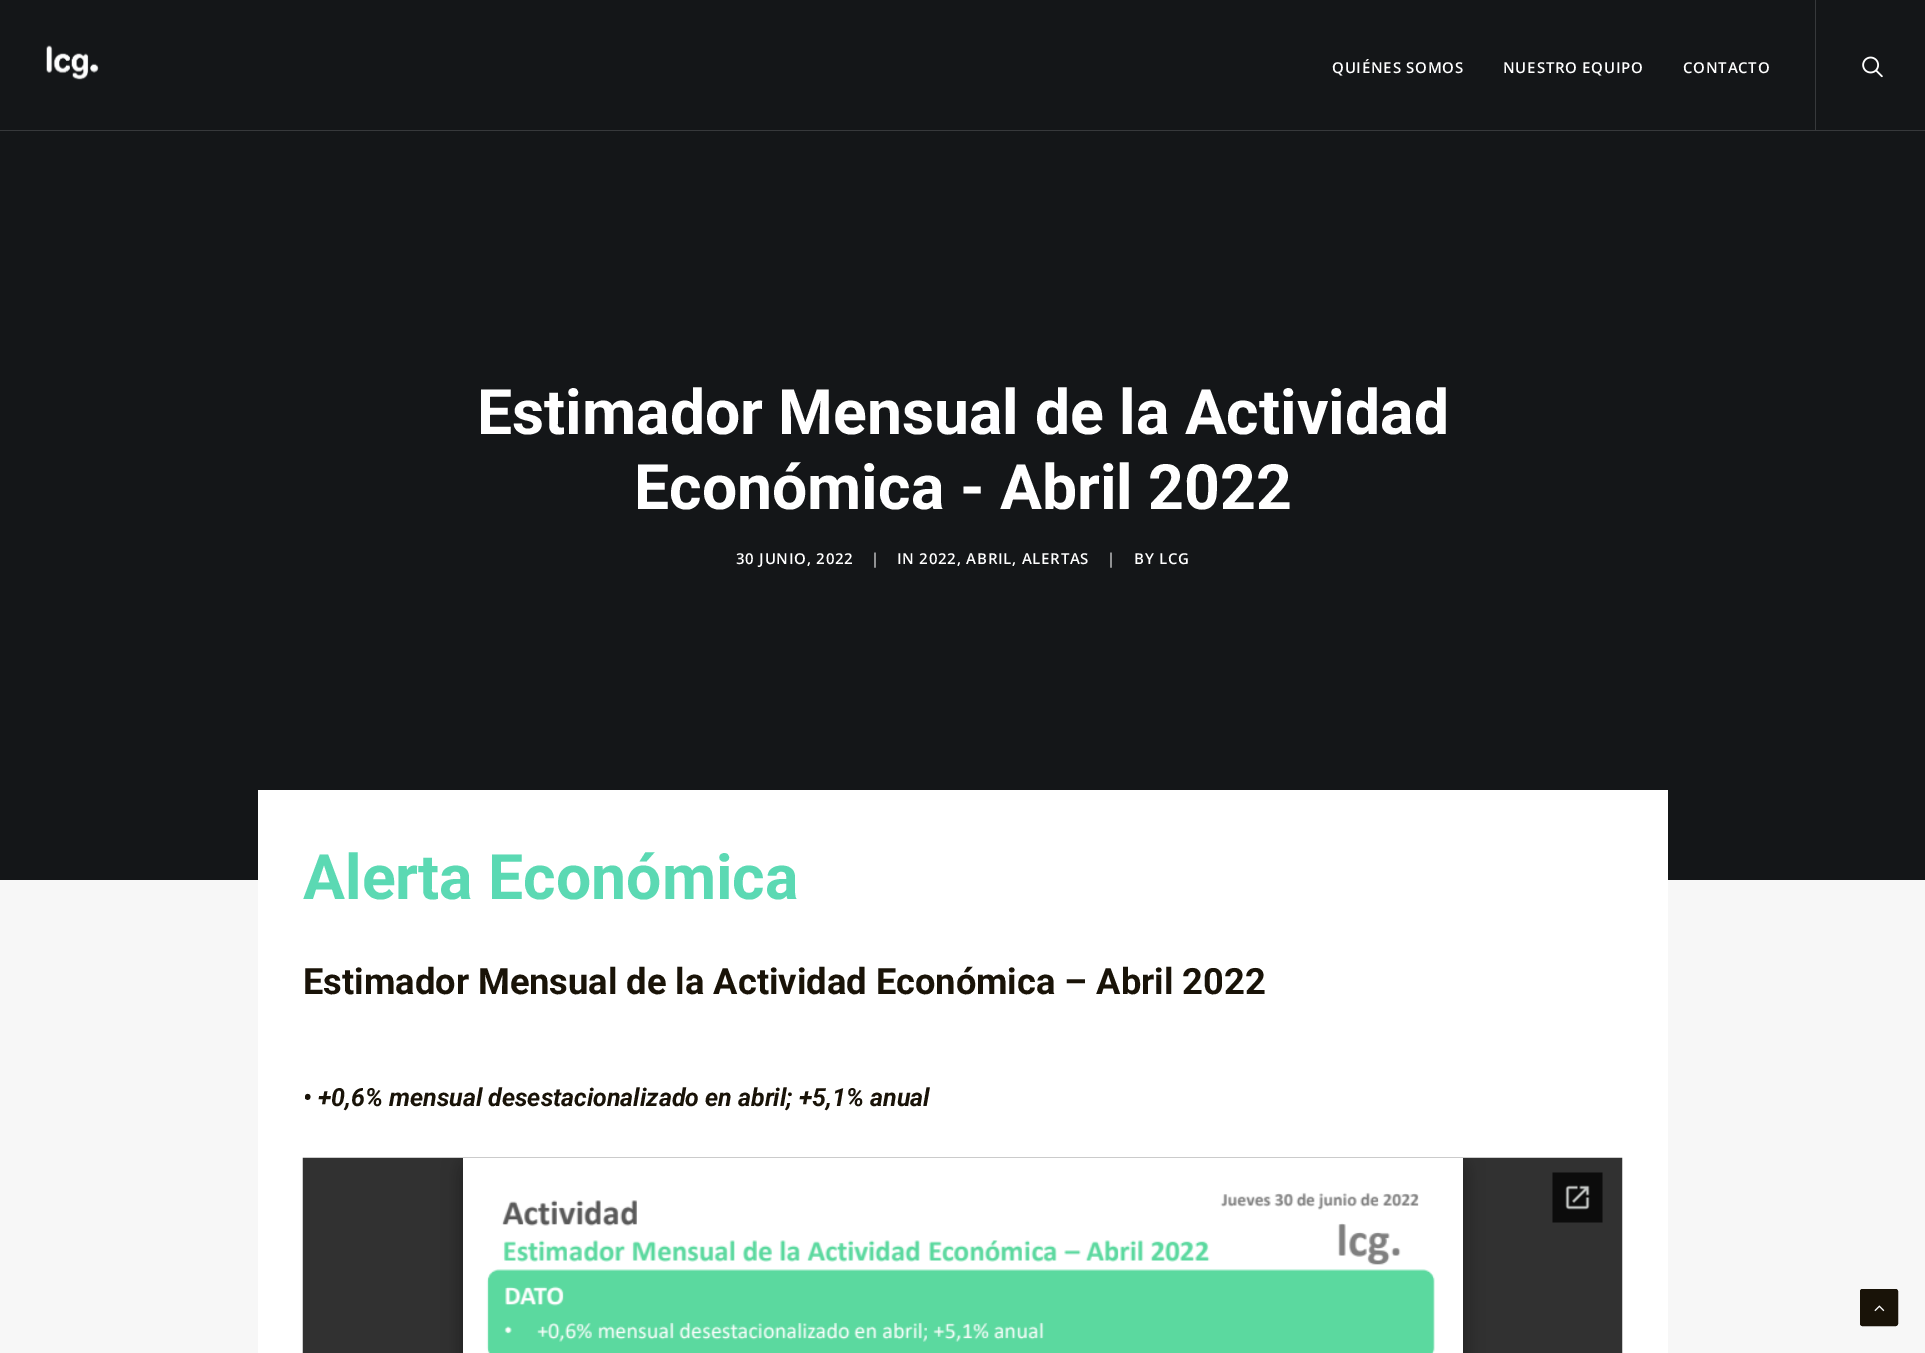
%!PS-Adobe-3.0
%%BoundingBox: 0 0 1925 1353
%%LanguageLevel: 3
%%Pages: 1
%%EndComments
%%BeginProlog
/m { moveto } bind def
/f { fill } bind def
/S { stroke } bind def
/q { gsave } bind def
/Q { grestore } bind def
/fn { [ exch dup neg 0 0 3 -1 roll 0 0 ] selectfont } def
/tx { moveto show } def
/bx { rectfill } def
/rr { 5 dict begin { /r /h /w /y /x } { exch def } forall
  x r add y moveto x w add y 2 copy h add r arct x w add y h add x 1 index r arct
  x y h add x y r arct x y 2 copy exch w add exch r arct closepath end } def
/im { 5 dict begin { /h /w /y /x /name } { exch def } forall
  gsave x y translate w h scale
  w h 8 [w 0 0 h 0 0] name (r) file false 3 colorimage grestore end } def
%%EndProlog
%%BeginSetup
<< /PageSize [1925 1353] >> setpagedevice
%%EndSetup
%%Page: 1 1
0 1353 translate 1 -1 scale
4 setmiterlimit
0.969 setgray
0 0 1925 1353 bx
0.078 0.086 0.094 setrgbcolor
0 0 1925 880 bx
0.216 0.224 0.231 setrgbcolor
0 130 1925 1 bx
(image0.raw) 46 45 53 35 im
/OpenSans-SemiBold 15 fn
1 setgray
1332 73 m 0.75 0 (QUIÉNES SOMOS) ashow
1503 73 m 0.75 0 (NUESTRO EQUIPO) ashow
1683 73 m 0.75 0 (CONTACTO) ashow
0.216 0.224 0.231 setrgbcolor
1815 0 1 130 bx
(image1.raw) 1862 56 21 22 im
/Roboto-Bold 62.5 fn
1 setgray
(Estimador Mensual de la Actividad) 477 434 tx
(Económica - Abril 2022) 634 509 tx
/OpenSans-SemiBold 15 fn
736 564 m 0.75 0 (30 JUNIO, 2022) ashow
/OpenSans-Regular 15 fn
871 564 m 0.75 0 (|) ashow
/OpenSans-SemiBold 15 fn
897 564 m 0.75 0 (IN 2022, ABRIL, ALERTAS) ashow
/OpenSans-Regular 15 fn
1107 564 m 0.75 0 (|) ashow
/OpenSans-SemiBold 15 fn
1134 564 m 0.75 0 (BY LCG) ashow
258 790 1410 563 bx
/Roboto-Bold 62.5 fn
0.357 0.851 0.702 setrgbcolor
(Alerta Económica) 303 899 tx
/Roboto-Bold 36.25 fn
0.098 0.075 0.031 setrgbcolor
(Estimador Mensual de la Actividad Económica – Abril 2022) 303 994 tx
/Roboto-BoldItalic 25 fn
(• +0,6% mensual desestacionalizado en abril; +5,1% anual) 303 1106 tx
(image2.raw) 302 1157 1321 196 im
1860.5 1289.5 37 36 2 rr q f Q
S
(image3.raw) 1874 1305 11 7 im
showpage
%%EOF
